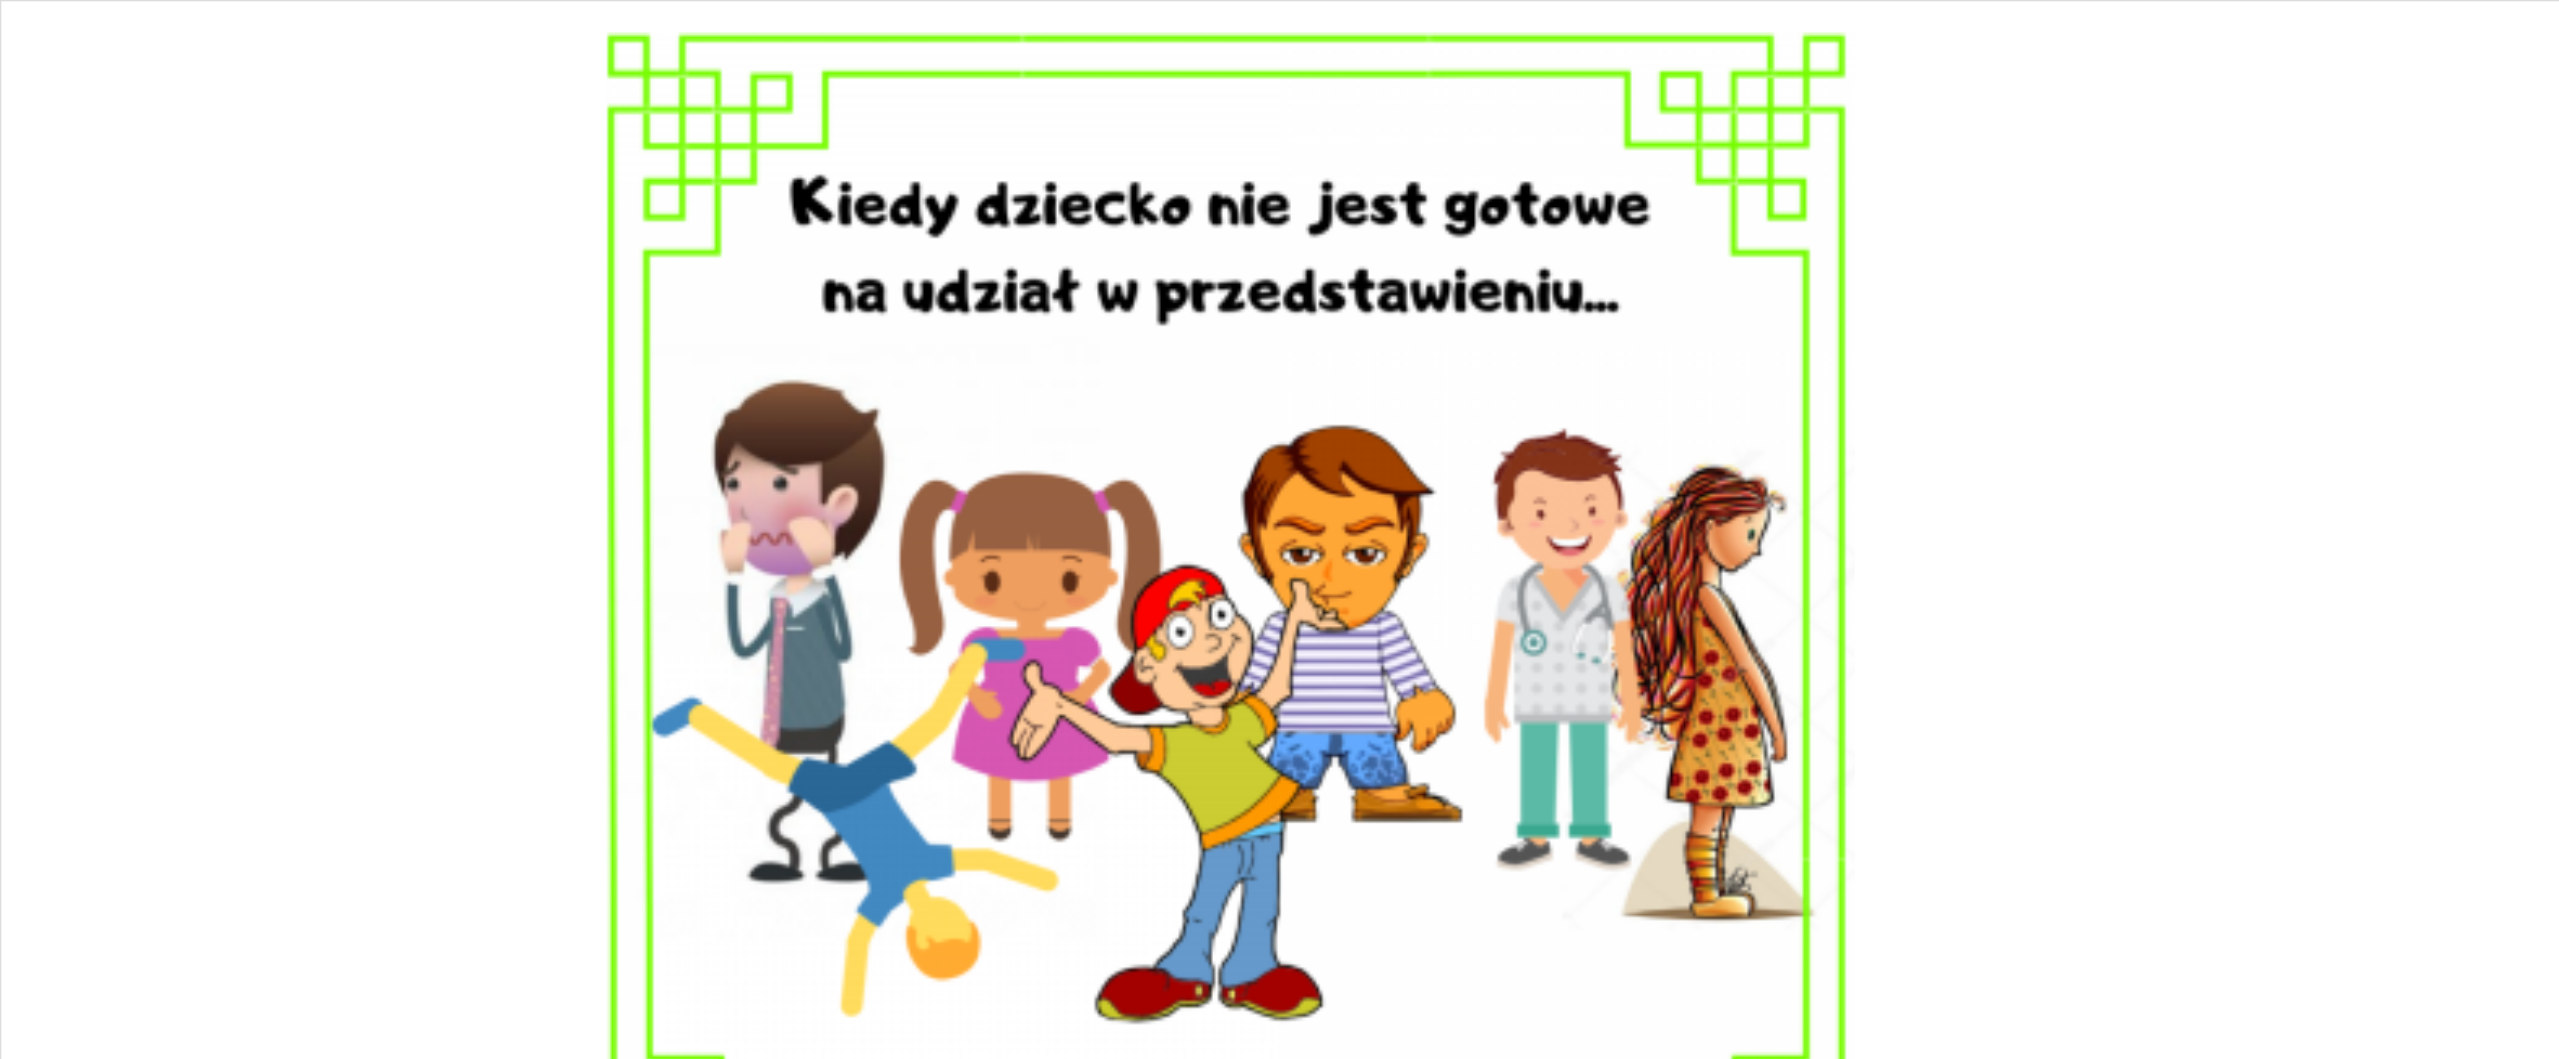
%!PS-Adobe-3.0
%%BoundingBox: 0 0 2559 1059
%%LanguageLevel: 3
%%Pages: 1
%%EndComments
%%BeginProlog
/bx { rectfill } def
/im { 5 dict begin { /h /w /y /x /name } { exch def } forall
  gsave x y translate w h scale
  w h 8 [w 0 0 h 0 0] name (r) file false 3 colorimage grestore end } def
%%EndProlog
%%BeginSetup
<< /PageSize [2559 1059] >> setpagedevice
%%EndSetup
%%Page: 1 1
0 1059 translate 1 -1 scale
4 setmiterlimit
1 setgray
0 0 2559 1059 bx
0.863 0.863 0.871 setrgbcolor
0.5 0.5 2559 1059 rectstroke
(image0.raw) 606 32 1249 1027 im
showpage
%%EOF
